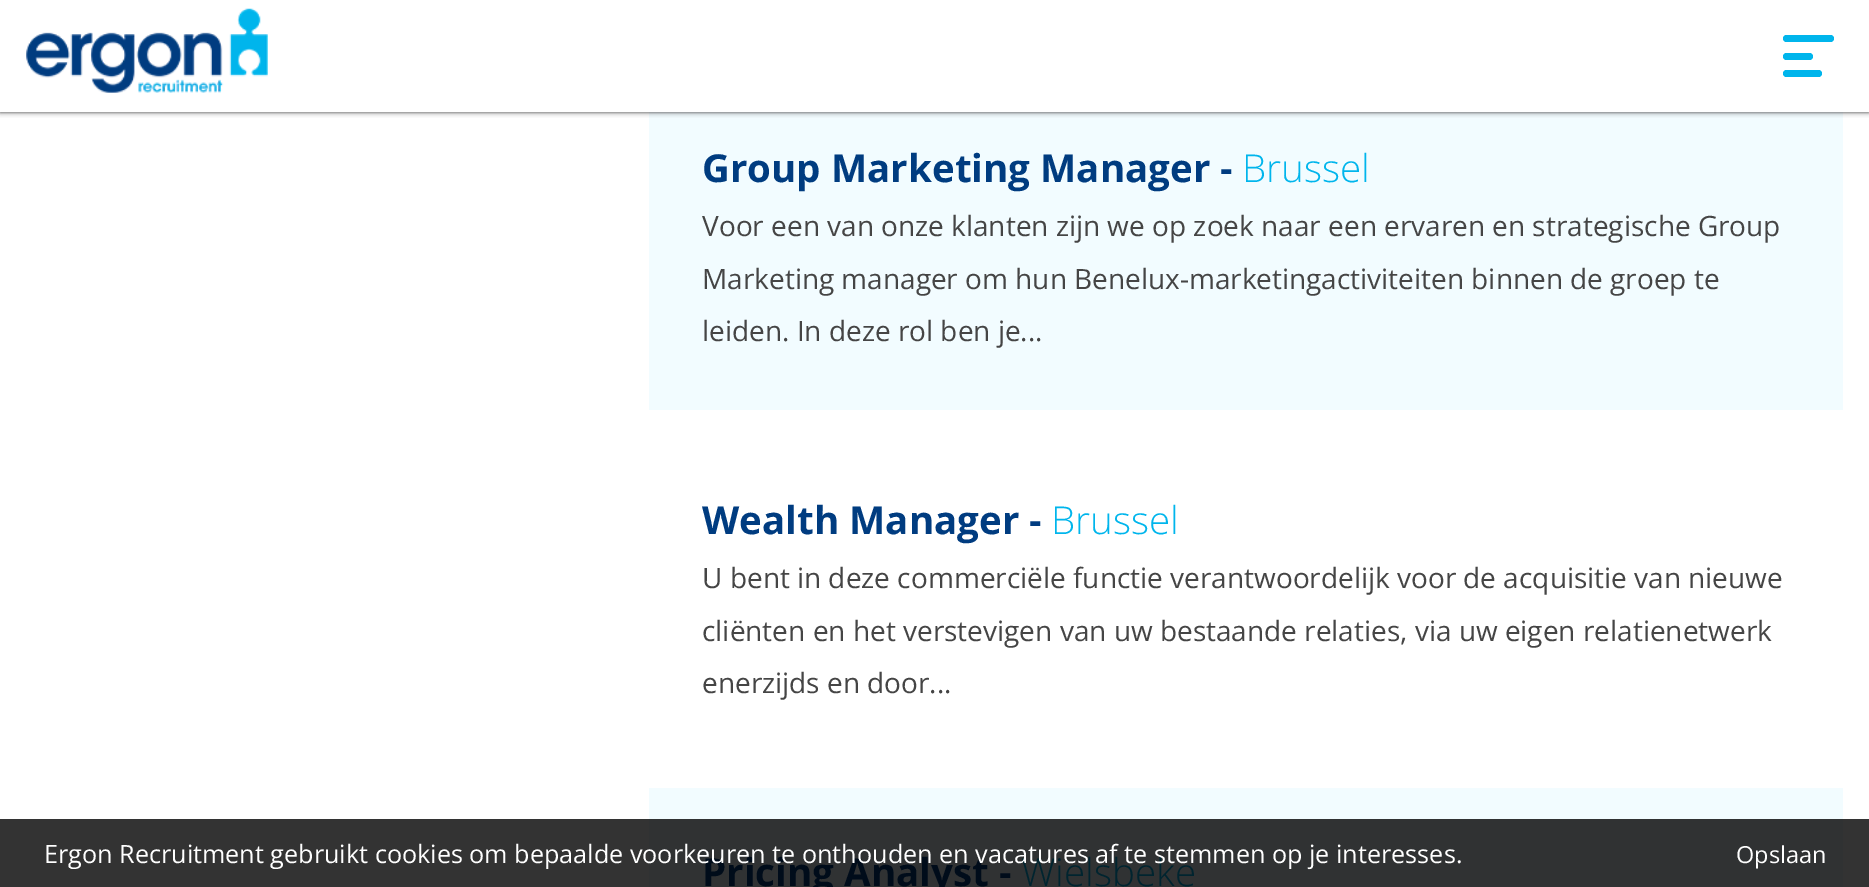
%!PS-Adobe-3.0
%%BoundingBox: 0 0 1869 887
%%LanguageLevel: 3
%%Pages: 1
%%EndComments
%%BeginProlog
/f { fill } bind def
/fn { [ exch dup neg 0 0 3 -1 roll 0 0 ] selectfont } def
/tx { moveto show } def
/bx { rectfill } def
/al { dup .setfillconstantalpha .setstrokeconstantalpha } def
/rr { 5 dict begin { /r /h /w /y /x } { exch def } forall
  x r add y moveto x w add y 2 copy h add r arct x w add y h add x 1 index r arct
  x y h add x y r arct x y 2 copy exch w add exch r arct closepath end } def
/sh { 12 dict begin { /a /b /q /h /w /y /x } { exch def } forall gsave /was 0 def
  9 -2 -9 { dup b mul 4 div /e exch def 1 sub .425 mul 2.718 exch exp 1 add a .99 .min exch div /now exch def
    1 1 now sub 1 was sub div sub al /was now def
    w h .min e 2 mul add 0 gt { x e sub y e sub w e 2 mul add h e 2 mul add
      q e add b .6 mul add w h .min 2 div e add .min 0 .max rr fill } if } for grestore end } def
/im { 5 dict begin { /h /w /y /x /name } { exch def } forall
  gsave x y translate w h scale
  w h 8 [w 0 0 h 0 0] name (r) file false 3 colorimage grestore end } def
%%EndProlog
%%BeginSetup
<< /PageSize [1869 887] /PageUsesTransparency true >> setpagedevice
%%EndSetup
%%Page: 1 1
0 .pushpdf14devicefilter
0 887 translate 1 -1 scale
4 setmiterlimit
1 setgray
0 0 1869 887 bx
0.2 setgray
0 819 1869 68 bx
0.949 0.988 1 setrgbcolor
649 112 1194 298 bx
0.2 setgray
0 0 1869 112 0 2.5 1 sh
1 setgray
0 0 1869 112 bx
(image0.raw) 26 8 242 85 im
0 0.71 0.925 setrgbcolor
1783 35 51 7 3.5 rr f
1783 53 30 7 3.5 rr f
1783 70 39 7 3.5 rr f
/OpenSans-Bold 38.5 fn
0 0.235 0.502 setrgbcolor
(Group Marketing Manager -) 702 182 tx
/OpenSans-Light 38.5 fn
0 0.71 0.925 setrgbcolor
(Brussel) 1242 182 tx
/OpenSans-Regular 28 fn
0.271 setgray
(Voor een van onze klanten zijn we op zoek naar een ervaren en strategische Group) 702 236 tx
(Marketing manager om hun Benelux-marketingactiviteiten binnen de groep te) 702 289 tx
(leiden. In deze rol ben je...) 702 341 tx
/OpenSans-Bold 38.5 fn
0 0.235 0.502 setrgbcolor
(Wealth Manager -) 702 534 tx
/OpenSans-Light 38.5 fn
0 0.71 0.925 setrgbcolor
(Brussel) 1051 534 tx
/OpenSans-Regular 28 fn
0.271 setgray
(U bent in deze commerciële functie verantwoordelijk voor de acquisitie van nieuwe) 702 588 tx
(cliënten en het verstevigen van uw bestaande relaties, via uw eigen relatienetwerk) 702 641 tx
(enerzijds en door...) 702 693 tx
0.949 0.988 1 setrgbcolor
649 788 1194 31 bx
0.188 0.196 0.2 setrgbcolor
649 819 1194 68 bx
/OpenSans-Bold 38.5 fn
0 0.047 0.102 setrgbcolor
(Pricing Analyst -) 702 886 tx
/OpenSans-Light 38.5 fn
0 0.141 0.184 setrgbcolor
(Wielsbeke) 1021 886 tx
/OpenSans-Regular 25.2 fn
1 setgray
(Ergon Recruitment gebruikt cookies om bepaalde voorkeuren te onthouden en vacatures af te stemmen op je interesses.) 44 863 tx
/OpenSans-Regular 23.5 fn
(Opslaan) 1736 863 tx
.poppdf14devicefilter showpage
%%EOF
